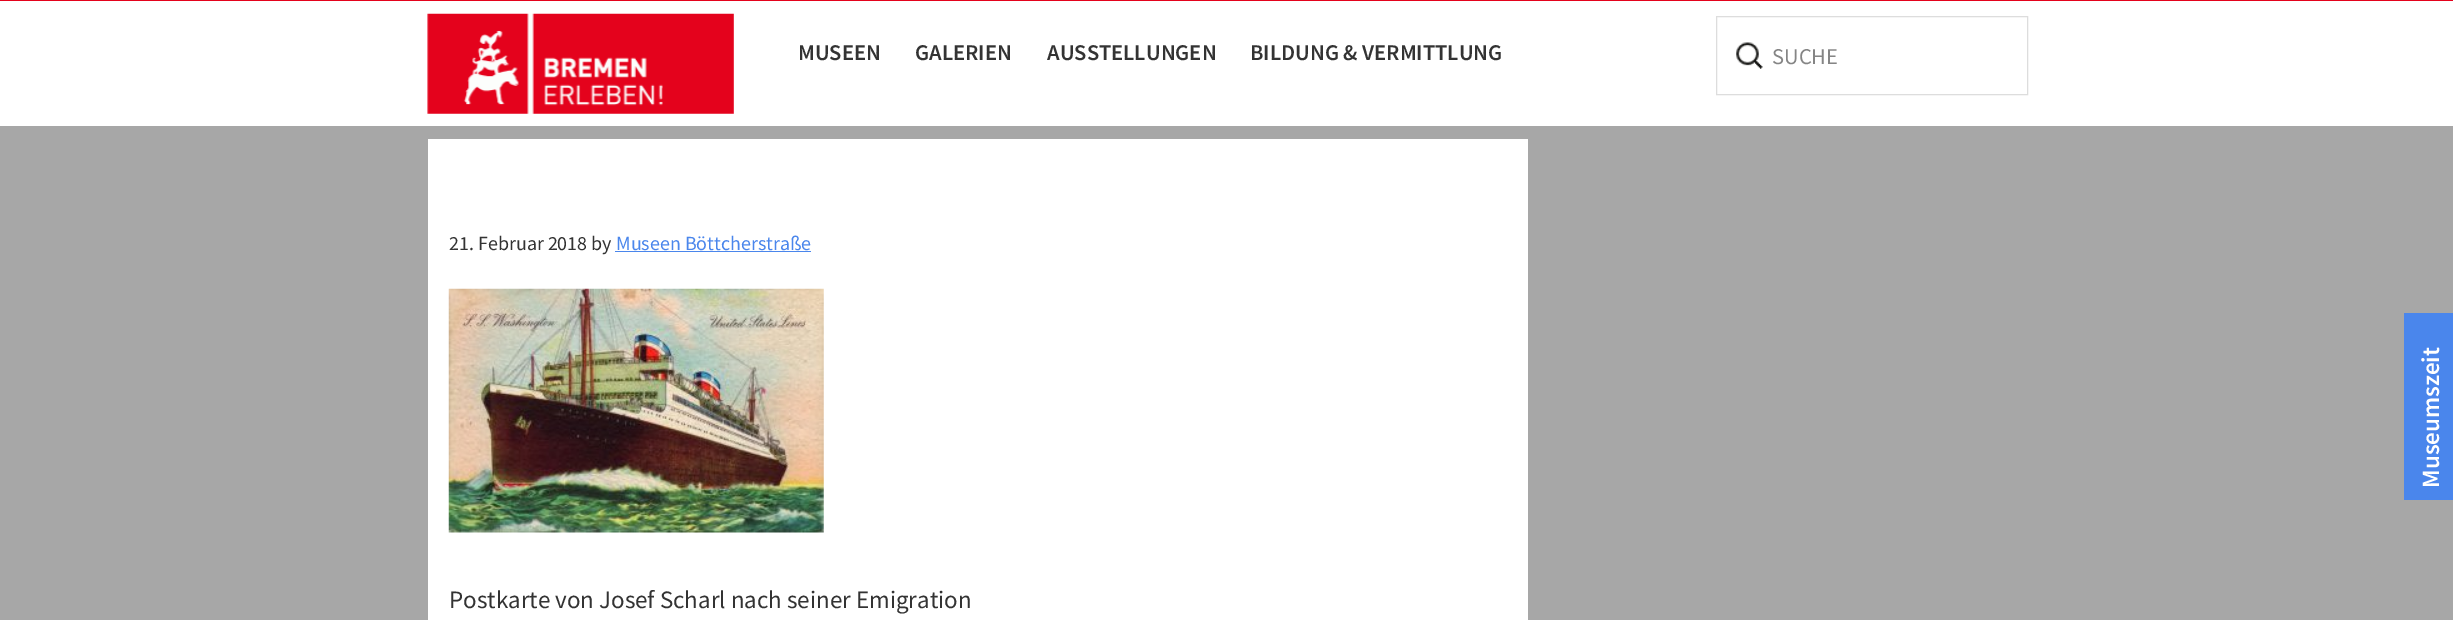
%!PS-Adobe-3.0
%%BoundingBox: 0 0 2453 620
%%LanguageLevel: 3
%%Pages: 1
%%EndComments
%%BeginProlog
/m { moveto } bind def
/q { gsave } bind def
/Q { grestore } bind def
/fn { [ exch dup neg 0 0 3 -1 roll 0 0 ] selectfont } def
/tx { moveto show } def
/bx { rectfill } def
/im { 5 dict begin { /h /w /y /x /name } { exch def } forall
  gsave x y translate w h scale
  w h 8 [w 0 0 h 0 0] name (r) file false 3 colorimage grestore end } def
%%EndProlog
%%BeginSetup
<< /PageSize [2453 620] >> setpagedevice
%%EndSetup
%%Page: 1 1
0 620 translate 1 -1 scale
4 setmiterlimit
0.655 setgray
0 0 2453 620 bx
0.894 0.008 0.11 setrgbcolor
0 0 2453 1 bx
1 setgray
0 1 2453 125 bx
(image0.raw) 427 13 307 101 im
/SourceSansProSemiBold-SemiBold 22.5 fn
0.2 setgray
(MUSEEN) 798 60 tx
(GALERIEN) 915 60 tx
(AUSSTELLUNGEN) 1047 60 tx
(BILDUNG & VERMITTLUNG) 1250 60 tx
(image1.raw) 1736 42 27 27 im
0.867 setgray
1716.5 16.5 311 78 rectstroke
/SourceSansPro-Regular 22.5 fn
0.522 setgray
(SUCHE) 1772 64 tx
1 setgray
428 139 1100 481 bx
/SourceSansPro-Regular 20 fn
0.2 setgray
(21. Februar 2018 by) 449 250 tx
0.29 0.525 0.925 setrgbcolor
(Museen Böttcherstraße) 616 250 tx
615 251 196 1 bx
(image2.raw) 448 288 376 245 im
/SourceSansPro-Regular 25 fn
0.2 setgray
(Postkarte von Josef Scharl nach seiner Emigration) 449 608 tx
0.29 0.525 0.925 setrgbcolor
2404 313 49 187 bx
/SourceSansProSemiBold-SemiBold 25 fn
1 setgray
q 2439 488 translate -90 rotate 0 0 m (Museumszeit) show Q
showpage
%%EOF
